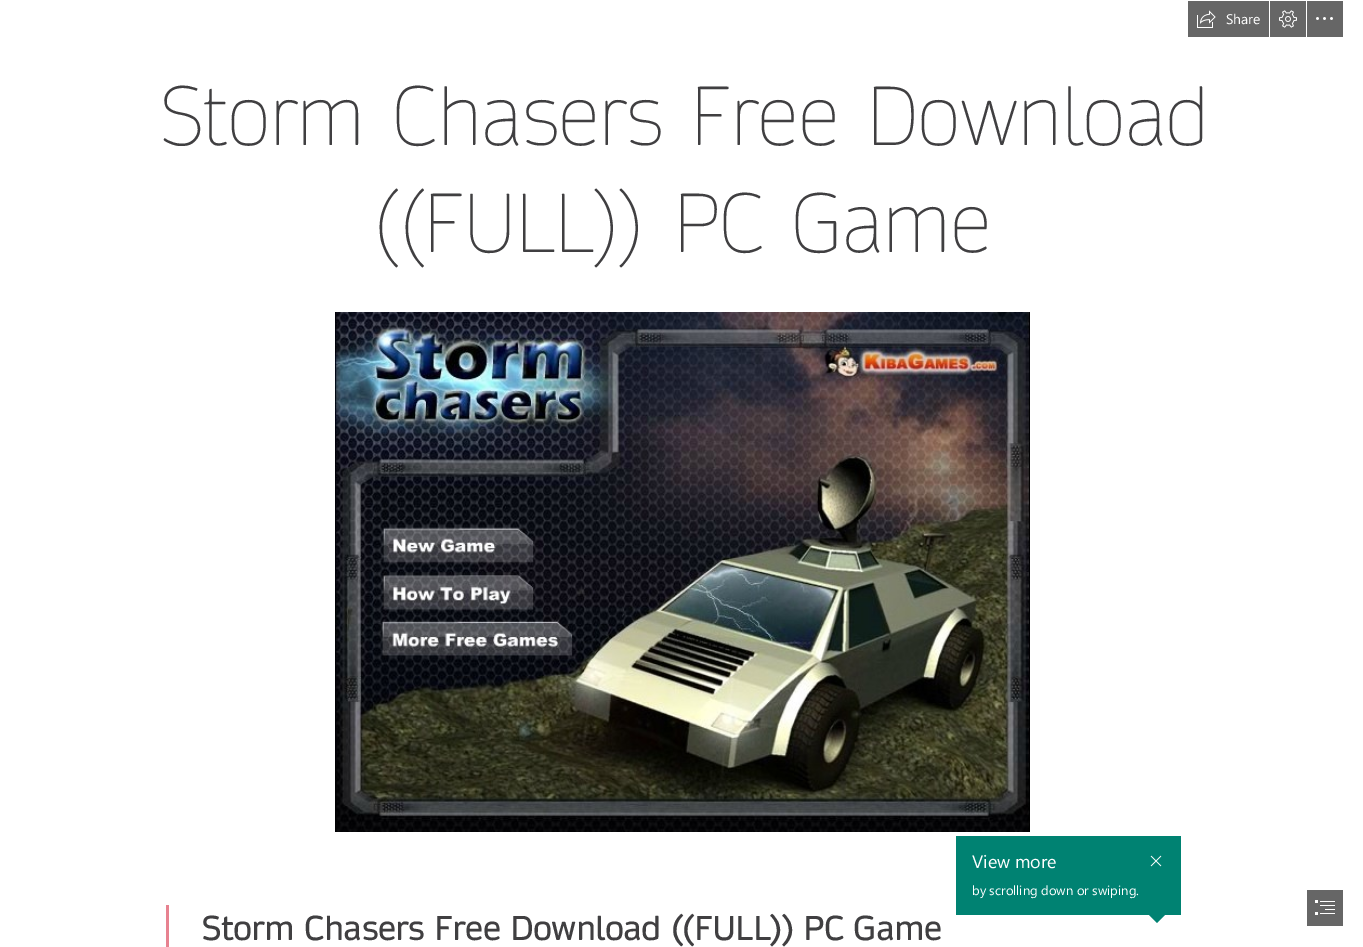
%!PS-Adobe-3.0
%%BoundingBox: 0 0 1363 947
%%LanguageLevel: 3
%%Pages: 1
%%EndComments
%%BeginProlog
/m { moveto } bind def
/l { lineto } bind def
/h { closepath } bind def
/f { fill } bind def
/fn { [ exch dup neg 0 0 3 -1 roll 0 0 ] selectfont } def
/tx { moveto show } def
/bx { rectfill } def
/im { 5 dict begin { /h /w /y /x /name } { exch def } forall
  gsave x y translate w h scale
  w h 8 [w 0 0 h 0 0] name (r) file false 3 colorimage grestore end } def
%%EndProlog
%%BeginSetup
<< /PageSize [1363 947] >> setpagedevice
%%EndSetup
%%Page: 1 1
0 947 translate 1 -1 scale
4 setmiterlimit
1 setgray
0 0 1363 947 bx
0.4 setgray
1188 1 81 36 bx
(image0.raw) 1197 10 19 18 im
/SegoeUI-Regular 14 fn
1 setgray
(Share) 1226 24 tx
0.4 setgray
1270 1 36 36 bx
(image1.raw) 1279 10 18 18 im
1307 1 36 36 bx
(image2.raw) 1316 17 17 3 im
/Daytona-Thin 79.9 fn
0.251 0.247 0.255 setrgbcolor
159 145 m -1.1 0 (Storm Chasers Free Download) ashow
372 252 m -1.1 0 (\(\(FULL\)\) PC Game) ashow
(image3.raw) 335 312 695 520 im
0.906 0.51 0.565 setrgbcolor
166 905 3 42 bx
/Daytona-Regular 33 fn
0.251 0.247 0.255 setrgbcolor
201 940 m -0.8 0 (Storm Chasers Free Download \(\(FULL\)\) PC Game) ashow
0 0.51 0.447 setrgbcolor
956 836 225 79 bx
/SegoeUI-Regular 18 fn
1 setgray
(View more) 972 868 tx
/SegoeUI-Regular 13 fn
(by scrolling down or swiping.) 972 895 tx
(image4.raw) 1150 855 12 12 im
0 0.51 0.447 setrgbcolor
1149 915 m 1165 915 l 1157 923 l h f
0.4 setgray
1307 890 36 36 bx
(image5.raw) 1315 900 20 15 im
showpage
%%EOF
